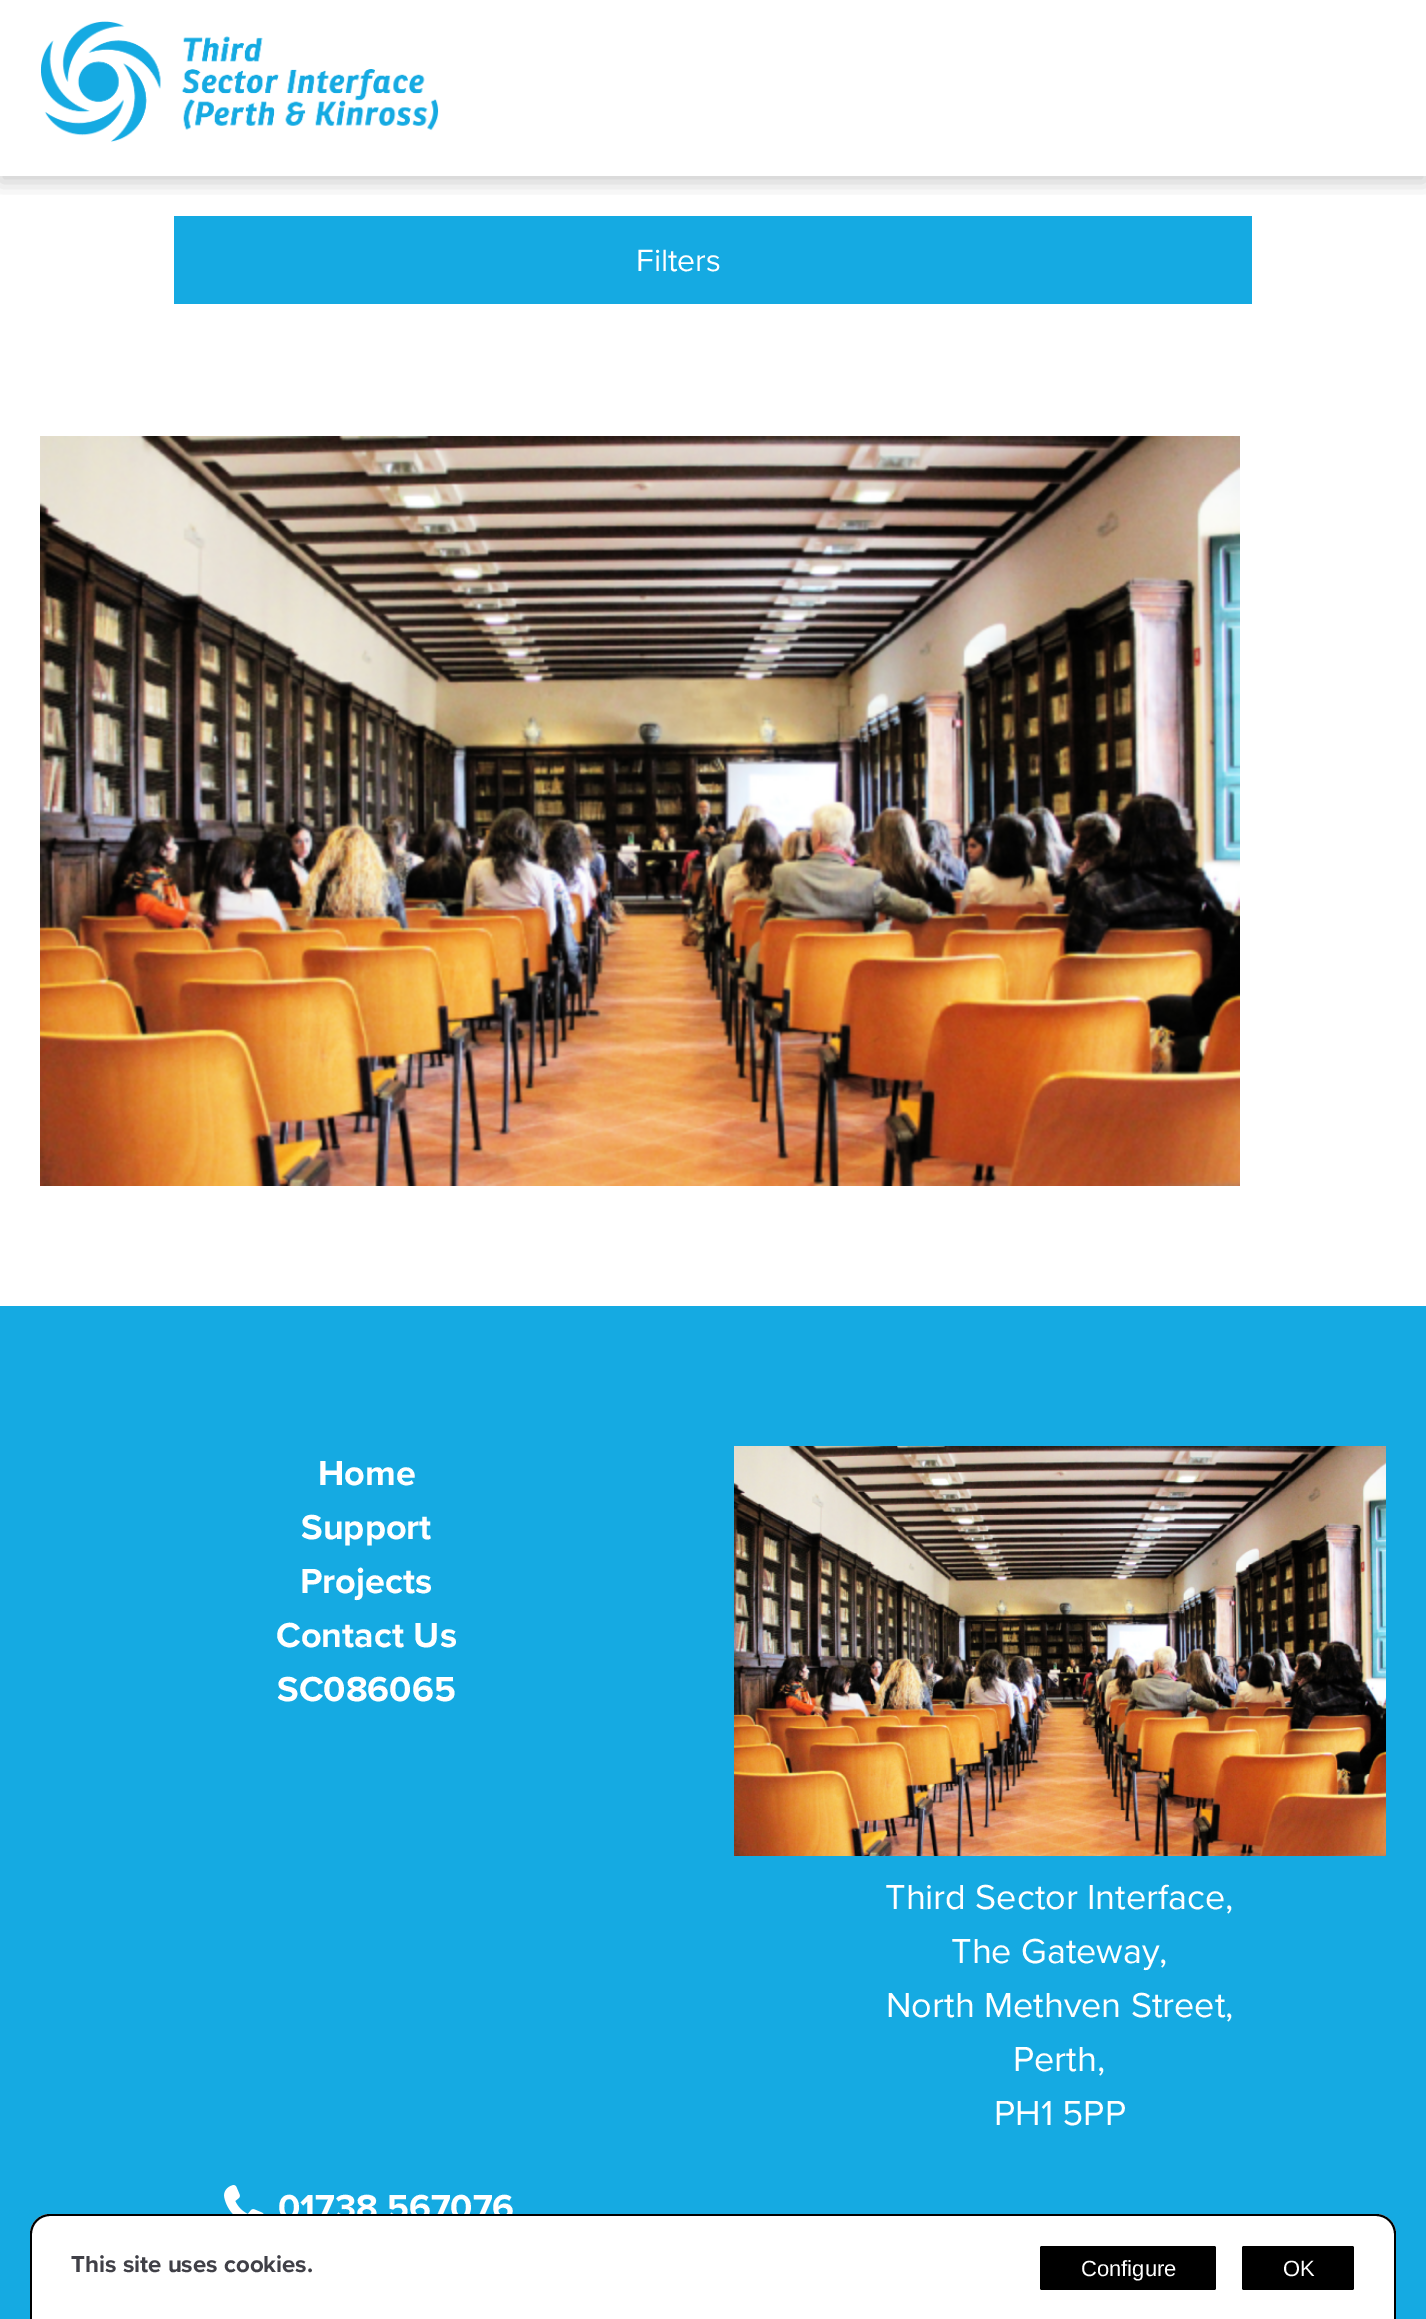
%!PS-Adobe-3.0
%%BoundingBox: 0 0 1426 2319
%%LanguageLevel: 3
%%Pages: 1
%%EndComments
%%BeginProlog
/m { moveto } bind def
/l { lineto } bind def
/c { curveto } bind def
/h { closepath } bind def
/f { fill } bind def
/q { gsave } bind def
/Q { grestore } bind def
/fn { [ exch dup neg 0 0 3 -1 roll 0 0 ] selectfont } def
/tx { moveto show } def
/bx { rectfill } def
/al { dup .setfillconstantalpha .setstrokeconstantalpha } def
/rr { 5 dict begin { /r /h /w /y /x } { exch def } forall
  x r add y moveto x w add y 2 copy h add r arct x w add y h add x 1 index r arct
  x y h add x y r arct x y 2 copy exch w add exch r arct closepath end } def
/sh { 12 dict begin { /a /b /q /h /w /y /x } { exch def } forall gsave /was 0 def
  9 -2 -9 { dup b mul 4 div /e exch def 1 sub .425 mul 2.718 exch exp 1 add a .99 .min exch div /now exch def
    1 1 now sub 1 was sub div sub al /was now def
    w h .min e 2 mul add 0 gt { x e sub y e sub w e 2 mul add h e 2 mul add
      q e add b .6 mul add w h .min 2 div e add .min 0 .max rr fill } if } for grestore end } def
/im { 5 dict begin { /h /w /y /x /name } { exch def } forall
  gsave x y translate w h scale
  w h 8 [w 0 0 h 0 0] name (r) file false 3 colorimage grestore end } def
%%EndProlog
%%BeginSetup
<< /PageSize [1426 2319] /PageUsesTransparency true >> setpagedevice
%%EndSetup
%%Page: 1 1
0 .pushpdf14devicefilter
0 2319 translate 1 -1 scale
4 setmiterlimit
1 setgray
0 0 1426 2319 bx
q
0 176 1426 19 rectclip
0 setgray
0 6 1426 176 0 10 0.2 sh
Q
(image0.raw) 40 21 399 121 im
0.082 0.667 0.886 setrgbcolor
174 216 1078 88 bx
/ProximaNova-Regular 32 fn
1 setgray
(Filters) 636 271 tx
(image1.raw) 40 436 1200 750 im
0.082 0.667 0.886 setrgbcolor
0 1306 1426 1013 bx
/ProximaNova-Bold 36 fn
1 setgray
(Home) 318 1485 tx
(Support) 301 1539 tx
(Projects) 300 1593 tx
(Contact Us) 276 1647 tx
(SC086065) 277 1701 tx
(image2.raw) 734 1446 652 410 im
/ProximaNova-Regular 36 fn
(Third Sector Interface,) 885 1909 tx
(The Gateway,) 951 1963 tx
(North Methven Street,) 886 2017 tx
(Perth,) 1013 2071 tx
(PH1 5PP) 994 2125 tx
(image3.raw) 224 2185 40 29 im
/ProximaNova-Bold 36 fn
(01738 567076) 278 2219 tx
50 2214 m 1376 2214 l 1387 2214 1396 2223 1396 2234 c 1396 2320 l 30 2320 l 30 2234 l 30 2223 39 2214 50 2214 c h f
0 setgray
50 2214 m 1376 2214 l 1387 2214 1396 2223 1396 2234 c 1396 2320 l 30 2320 l 30 2234 l 30 2223 39 2214 50 2214 c h 50 2216 m 1376 2216 l 1386 2216 1394 2224 1394 2234 c 1394 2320 l 32 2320 l 32 2234 l 32 2224 40 2216 50 2216 c h eofill
/ProximaNova-Bold 24 fn
0.251 0.251 0.278 setrgbcolor
(This site uses cookies.) 71 2272 tx
0 setgray
1040 2246 176 44 2 rr f
/LiberationSans-Regular 22 fn
1 setgray
(Configure) 1081 2276 tx
0 setgray
1242 2246 112 44 2 rr f
1 setgray
(OK) 1283 2276 tx
.poppdf14devicefilter showpage
%%EOF
